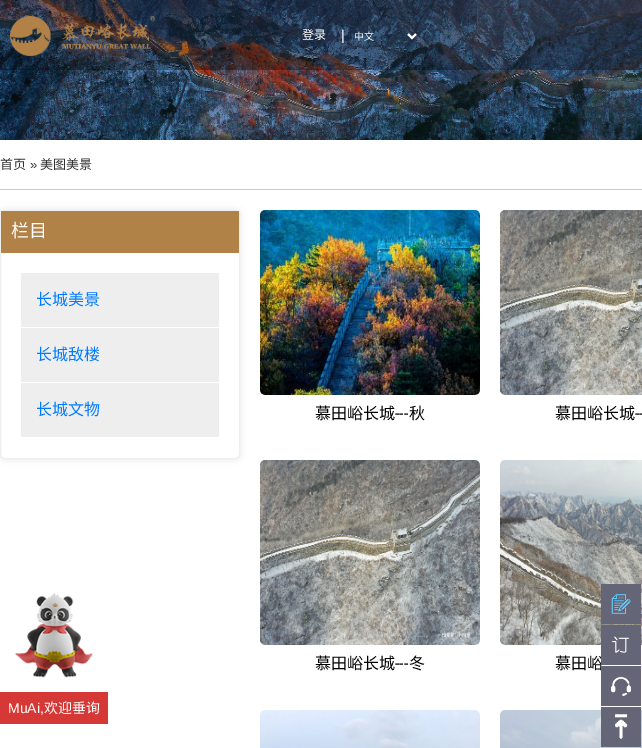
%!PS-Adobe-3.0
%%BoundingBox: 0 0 642 748
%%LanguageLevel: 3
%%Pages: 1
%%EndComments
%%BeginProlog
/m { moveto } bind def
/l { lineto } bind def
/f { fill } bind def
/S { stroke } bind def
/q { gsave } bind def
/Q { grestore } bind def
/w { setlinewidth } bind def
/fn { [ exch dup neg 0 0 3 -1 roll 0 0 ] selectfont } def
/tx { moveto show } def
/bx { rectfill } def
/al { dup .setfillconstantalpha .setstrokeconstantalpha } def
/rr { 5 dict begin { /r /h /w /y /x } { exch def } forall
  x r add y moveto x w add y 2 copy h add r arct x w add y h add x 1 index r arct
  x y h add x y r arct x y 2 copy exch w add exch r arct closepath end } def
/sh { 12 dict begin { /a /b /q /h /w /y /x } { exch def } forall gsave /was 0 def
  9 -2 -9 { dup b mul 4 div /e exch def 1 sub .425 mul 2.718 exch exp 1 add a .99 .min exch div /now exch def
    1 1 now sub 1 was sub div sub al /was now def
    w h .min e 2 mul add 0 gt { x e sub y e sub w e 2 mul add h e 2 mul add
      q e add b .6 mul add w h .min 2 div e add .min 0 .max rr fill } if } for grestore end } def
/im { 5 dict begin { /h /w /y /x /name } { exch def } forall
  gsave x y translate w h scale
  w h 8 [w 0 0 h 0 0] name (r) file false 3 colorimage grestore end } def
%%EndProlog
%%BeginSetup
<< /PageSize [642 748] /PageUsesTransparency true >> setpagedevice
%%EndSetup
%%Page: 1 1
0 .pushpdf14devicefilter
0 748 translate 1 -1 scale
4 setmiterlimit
1 setgray
0 0 642 748 bx
(image1.raw) 0 0 642 140 im
0.3 al
0 setgray
0 0 642 70 bx
1 al
(image0.raw) 10 16 145 40 im
/NotoSansCJKSC-Regular 12 fn
1 setgray
(登录) 302 39 tx
/LiberationSans-Regular 14 fn
(|) 341 40 tx
2 w
408 34 m 412 38 l 416 34 l S
/NotoSansCJKSC-Regular 10 fn
(中文) 354 40 tx
0.8 setgray
0 189 642 1 bx
/NotoSansCJKSC-Regular 13 fn
0.2 setgray
(首页) 0 169 tx
/LiberationSans-Regular 13 fn
(») 30 169 tx
/NotoSansCJKSC-Regular 13 fn
(美图美景) 40 169 tx
0 setgray
0 210 240 249 5 4 0.1 sh
1 setgray
0.5 210.5 239 248 4.5 rr q f Q
0.933 setgray
1 w
S
0.694 0.51 0.278 setrgbcolor
1 211 238 42 bx
/NotoSansCJKSC-Regular 18 fn
1 setgray
(栏目) 11 237 tx
0.933 setgray
21 273 198 54 bx
/NotoSansCJKSC-Regular 16 fn
0 0.482 1 setrgbcolor
(长城美景) 36 305 tx
0.933 setgray
21 328 198 54 bx
0 0.482 1 setrgbcolor
(长城敌楼) 36 360 tx
0.933 setgray
21 383 198 54 bx
0 0.482 1 setrgbcolor
(长城文物) 36 415 tx
(image2.raw) 260 210 220 185 im
0 setgray
(慕田峪长城) 315 419 tx
/Roboto-Regular 16 fn
(---) 395 419 tx
/NotoSansCJKSC-Regular 16 fn
(秋) 409 419 tx
(image3.raw) 500 210 142 185 im
(慕田峪长城) 555 419 tx
/Roboto-Regular 16 fn
(--) 635 419 tx
(image4.raw) 260 460 220 185 im
/NotoSansCJKSC-Regular 16 fn
(慕田峪长城) 315 669 tx
/Roboto-Regular 16 fn
(---) 395 669 tx
/NotoSansCJKSC-Regular 16 fn
(冬) 409 669 tx
(image5.raw) 500 460 142 185 im
(慕田峪) 555 669 tx
(image6.raw) 260 710 220 38 im
(image7.raw) 500 710 142 38 im
(image8.raw) 15 593 78 85 im
0.839 0.22 0.208 setrgbcolor
0 692 108 32 bx
/LiberationSans-Regular 14 fn
1 setgray
(MuAi,) 8 713 tx
/NotoSansCJKSC-Regular 14 fn
(欢迎垂询) 44 713 tx
0.392 0.396 0.467 setrgbcolor
601 584 40 40 bx
(image9.raw) 611 594 20 20 im
601 625 40 40 bx
(image10.raw) 612 636 17 17 im
601 666 40 40 bx
(image11.raw) 611 676 20 20 im
601 707 40 40 bx
(image12.raw) 615 714 13 25 im
.poppdf14devicefilter showpage
%%EOF
